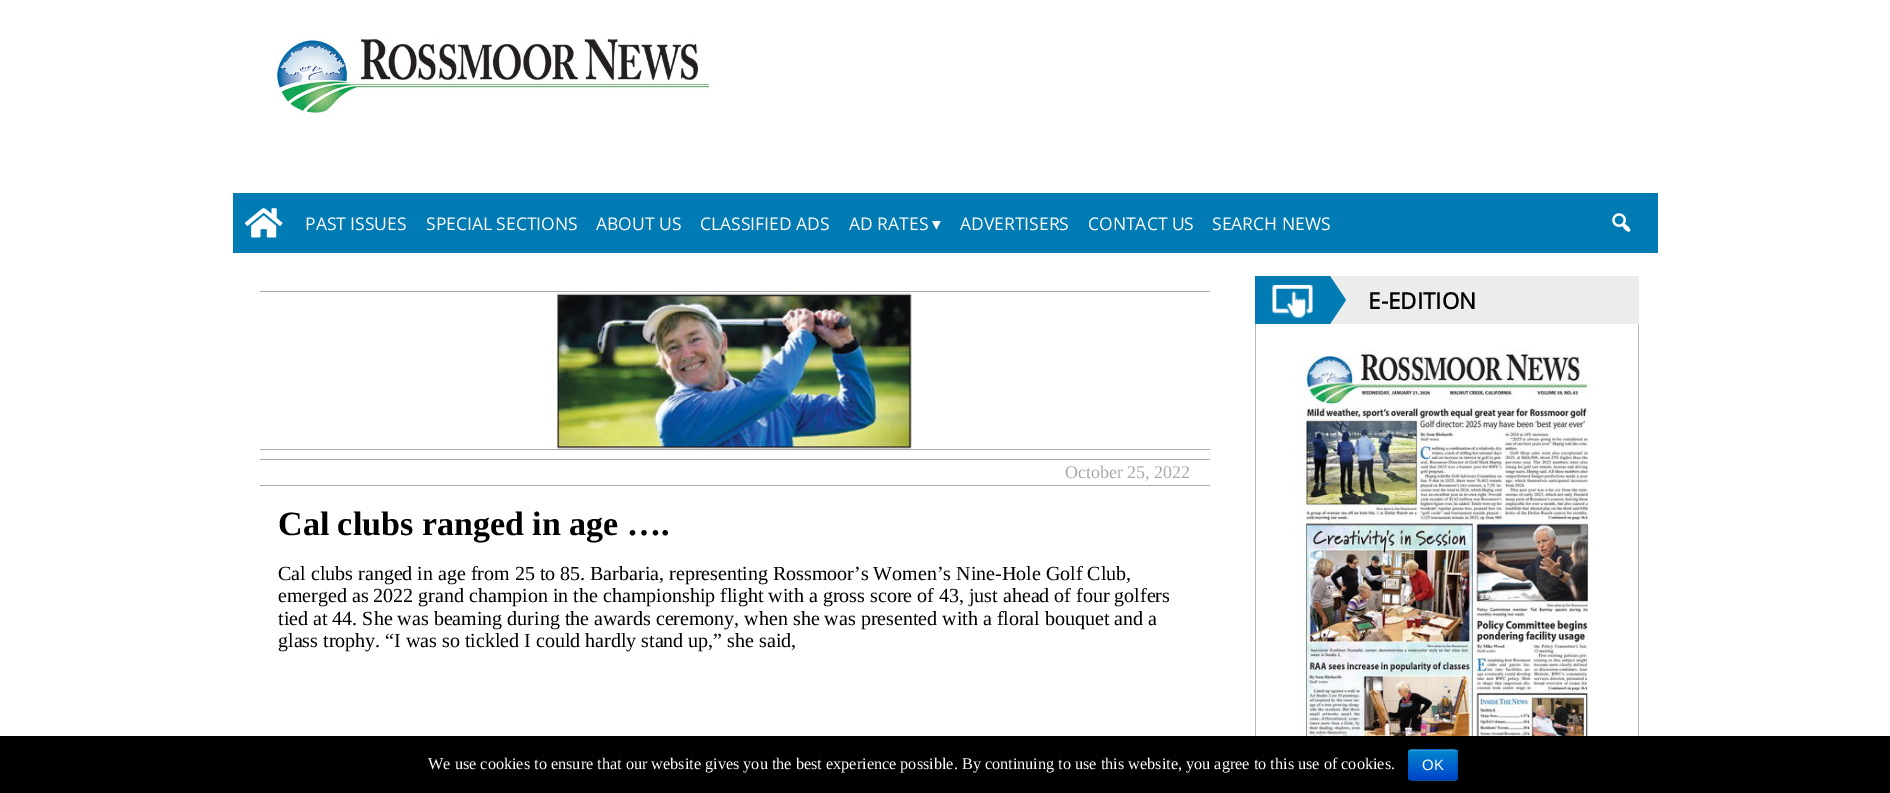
%!PS-Adobe-3.0
%%BoundingBox: 0 0 1890 793
%%LanguageLevel: 3
%%Pages: 1
%%EndComments
%%BeginProlog
/m { moveto } bind def
/l { lineto } bind def
/c { curveto } bind def
/h { closepath } bind def
/f { fill } bind def
/S { stroke } bind def
/q { gsave } bind def
/Q { grestore } bind def
/w { setlinewidth } bind def
/fn { [ exch dup neg 0 0 3 -1 roll 0 0 ] selectfont } def
/tx { moveto show } def
/bx { rectfill } def
/al { dup .setfillconstantalpha .setstrokeconstantalpha } def
/rr { 5 dict begin { /r /h /w /y /x } { exch def } forall
  x r add y moveto x w add y 2 copy h add r arct x w add y h add x 1 index r arct
  x y h add x y r arct x y 2 copy exch w add exch r arct closepath end } def
/im { 5 dict begin { /h /w /y /x /name } { exch def } forall
  gsave x y translate w h scale
  w h 8 [w 0 0 h 0 0] name (r) file false 3 colorimage grestore end } def
%%EndProlog
%%BeginSetup
<< /PageSize [1890 793] /PageUsesTransparency true >> setpagedevice
%%EndSetup
%%Page: 1 1
0 .pushpdf14devicefilter
0 793 translate 1 -1 scale
4 setmiterlimit
1 setgray
0 0 1890 793 bx
(image0.raw) 275 39 436 76 im
0 0.482 0.706 setrgbcolor
233 193 1425 60 bx
(image1.raw) 244 208 39 30 im
/OpenSans-Regular 17.5 fn
1 setgray
(PAST ISSUES) 305 230 tx
(SPECIAL SECTIONS) 426 230 tx
(ABOUT US) 596 230 tx
(CLASSIFIED ADS) 700 230 tx
(AD RATES) 849 230 tx
/DejaVuSans-Regular 17.5 fn
(▾) 932 230 tx
/OpenSans-Regular 17.5 fn
(ADVERTISERS) 960 230 tx
(CONTACT US) 1088 230 tx
(SEARCH NEWS) 1212 230 tx
(image2.raw) 1612 213 19 19 im
0.925 setgray
1330 276 309 48 bx
0 0.482 0.706 setrgbcolor
1255 276 75 48 bx
(image3.raw) 1272 285 41 33 im
1330 324 m 1330 276 l 1346 300 l h f
/OpenSans-Bold 22.5 fn
0 setgray
(E-EDITION) 1368 309 tx
0.725 setgray
1638 324 1 412 bx
1255 324 1 412 bx
(image4.raw) 1295 349 294 387 im
0.663 setgray
260 291 950 1 bx
260 449 950 1 bx
(image5.raw) 557 292 355 157 im
260 459 950 1 bx
260 485 950 1 bx
/LiberationSerif-Regular 18 fn
(October 25, 2022) 1065 478 tx
/LiberationSerif-Bold 34 fn
0 setgray
(Cal clubs ranged in age ….) 278 535 tx
/LiberationSerif-Regular 20 fn
(Cal clubs ranged in age from 25 to 85. Barbaria, representing Rossmoor’s Women’s Nine-Hole Golf Club,) 278 580 tx
(emerged as 2022 grand champion in the championship flight with a gross score of 43, just ahead of four golfers) 278 602 tx
(tied at 44. She was beaming during the awards ceremony, when she was presented with a floral bouquet and a) 278 625 tx
(glass trophy. “I was so tickled I could hardly stand up,” she said,) 278 647 tx
0 736 1890 57 bx
/LiberationSerif-Regular 16.25 fn
1 setgray
(We use cookies to ensure that our website gives you the best experience possible. By continuing to use this website, you agree to this use of cookies.) 428 769 tx
0 0.427 0.8 setrgbcolor
1408 749 50 32 4 rr f
q
1408 749 50 32 4 rr clip newpath
q 1408 750 m 1458 750 l 1458 780 l 1408 780 l h clip newpath
<< /ShadingType 2 /ColorSpace /DeviceRGB /Coords [1433 750 1433 780] /Extend [true true] /Function << /FunctionType 2 /Domain [0 1] /C0 [0 0.533 0.8] /C1 [0 0.267 0.8] /N 1 >> >> shfill Q
Q
0.2 0.624 0.839 setrgbcolor
1411 751 m 1454 751 l 1455 751 1456 752 1456 754 c 1456 748 1452 750 1446 750 c 1418 750 l 1413 750 1409 748 1409 754 c 1409 752 1410 751 1411 751 c h f
0.25 al
0 setgray
1.2 w
1456 779.5 m 1454 780.5 l 1411 780.5 l 1409 779.5 l S
0.1 al
1409 779.5 m 1407 777.5 1408 768 1408 765 c 1408 750 1404.5 749.5 1418.5 749.5 c 1446.5 749.5 l 1460.5 749.5 1457 750 1457 765 c 1457 768 1458 777.5 1456 779.5 c S
/LiberationSans-Regular 15 fn
1 al
1 setgray
(OK) 1422 770 tx
.poppdf14devicefilter showpage
%%EOF
